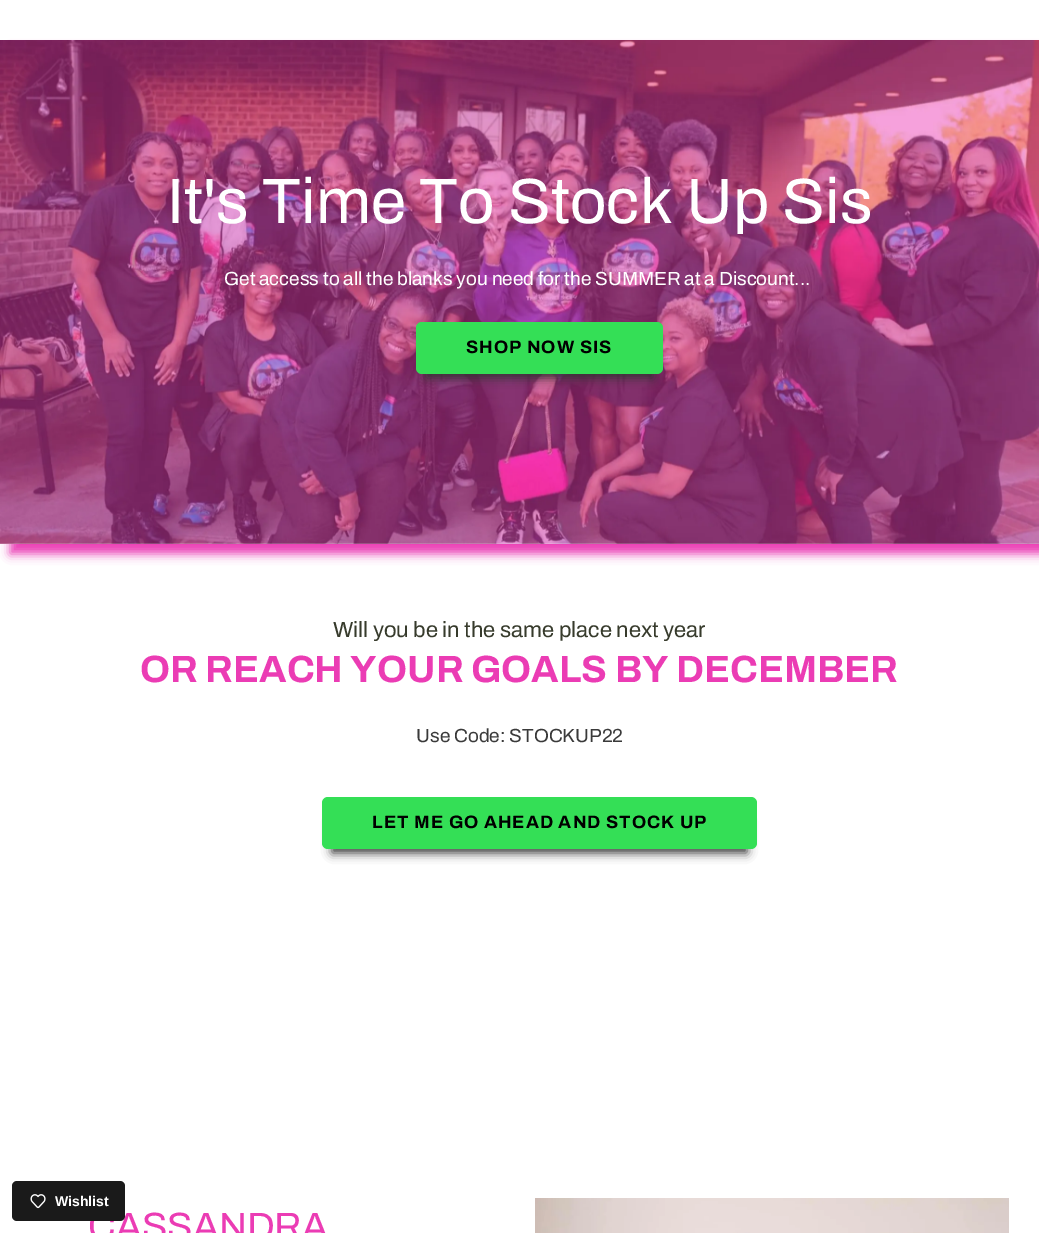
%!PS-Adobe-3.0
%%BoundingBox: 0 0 1039 1233
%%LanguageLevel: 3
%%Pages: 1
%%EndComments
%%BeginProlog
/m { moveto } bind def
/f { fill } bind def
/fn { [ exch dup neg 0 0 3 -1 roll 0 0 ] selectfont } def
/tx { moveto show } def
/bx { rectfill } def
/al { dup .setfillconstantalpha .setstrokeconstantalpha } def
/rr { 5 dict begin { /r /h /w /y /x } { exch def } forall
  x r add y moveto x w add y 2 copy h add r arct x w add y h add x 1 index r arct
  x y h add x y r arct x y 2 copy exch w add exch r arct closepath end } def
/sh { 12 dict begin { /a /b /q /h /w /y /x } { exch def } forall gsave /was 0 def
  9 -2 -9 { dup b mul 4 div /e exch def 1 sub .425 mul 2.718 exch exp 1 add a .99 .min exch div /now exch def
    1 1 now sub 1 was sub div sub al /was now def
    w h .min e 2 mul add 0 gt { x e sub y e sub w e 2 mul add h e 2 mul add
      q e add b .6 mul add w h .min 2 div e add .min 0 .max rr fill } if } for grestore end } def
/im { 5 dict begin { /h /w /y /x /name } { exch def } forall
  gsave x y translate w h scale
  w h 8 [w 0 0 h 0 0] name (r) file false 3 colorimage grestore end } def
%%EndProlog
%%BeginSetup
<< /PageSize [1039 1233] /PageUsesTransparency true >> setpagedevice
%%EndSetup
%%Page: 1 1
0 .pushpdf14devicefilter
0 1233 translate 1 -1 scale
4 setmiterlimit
1 setgray
0 0 1039 1233 bx
/Archivo-Regular 38 fn
0.922 0.235 0.706 setrgbcolor
(CASSANDRA) 88 1239 tx
0.102 setgray
12 1181 113 40 5 rr f
(image0.raw) 30 1194 16 15 im
/LiberationSans-Bold 14 fn
1 setgray
(Wishlist) 55 1206 tx
0.922 0.235 0.706 setrgbcolor
10 50 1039 504 0 5 1 sh
(image1.raw) 0 40 1039 504 im
/Archivo-Regular 64 fn
1 setgray
(It's Time To Stock Up Sis) 167 223 tx
/Archivo-Regular 19 fn
(Get access to all the blanks you need for the SUMMER at a Discount...) 224 285 tx
0.2 setgray
426 346 227 32 0 5 1 sh
0.204 0.875 0.337 setrgbcolor
416 322 247 52 6 rr f
/Archivo-Bold 18 fn
0 setgray
466 353 m 1 0 (SHOP NOW SIS) ashow
/Archivo-Regular 22 fn
0.216 0.231 0.173 setrgbcolor
(Will you be in the same place next year) 333 637 tx
/Archivo-Bold 38 fn
0.922 0.235 0.706 setrgbcolor
(OR REACH YOUR GOALS BY DECEMBER) 140 682 tx
/Archivo-Regular 19 fn
0.227 setgray
(Use Code: STOCKUP22) 416 742 tx
0.2 setgray
332 821 415 32 0 5 1 sh
0.204 0.875 0.337 setrgbcolor
322 797 435 52 6 rr f
/Archivo-Bold 18 fn
0 setgray
372 828 m 1 0 (LET ME GO AHEAD AND STOCK UP) ashow
(image2.raw) 535 1198 474 35 im
.poppdf14devicefilter showpage
%%EOF
